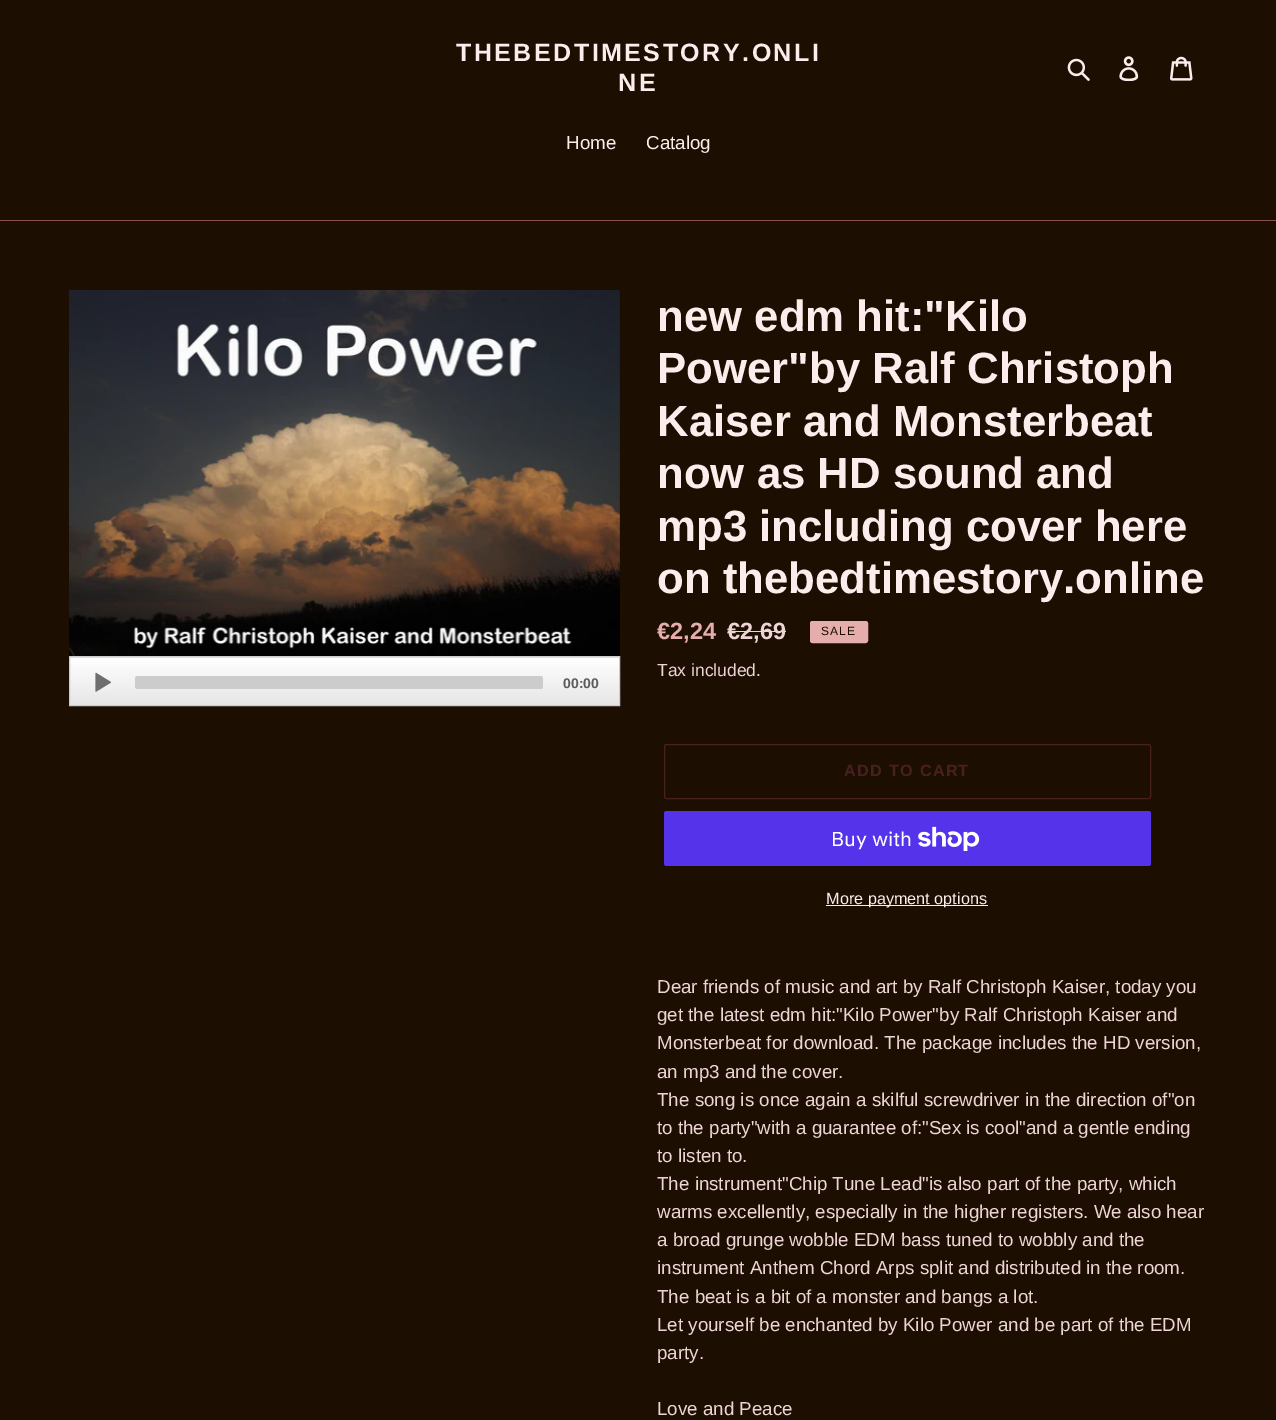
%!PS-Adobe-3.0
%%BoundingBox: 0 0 1276 1420
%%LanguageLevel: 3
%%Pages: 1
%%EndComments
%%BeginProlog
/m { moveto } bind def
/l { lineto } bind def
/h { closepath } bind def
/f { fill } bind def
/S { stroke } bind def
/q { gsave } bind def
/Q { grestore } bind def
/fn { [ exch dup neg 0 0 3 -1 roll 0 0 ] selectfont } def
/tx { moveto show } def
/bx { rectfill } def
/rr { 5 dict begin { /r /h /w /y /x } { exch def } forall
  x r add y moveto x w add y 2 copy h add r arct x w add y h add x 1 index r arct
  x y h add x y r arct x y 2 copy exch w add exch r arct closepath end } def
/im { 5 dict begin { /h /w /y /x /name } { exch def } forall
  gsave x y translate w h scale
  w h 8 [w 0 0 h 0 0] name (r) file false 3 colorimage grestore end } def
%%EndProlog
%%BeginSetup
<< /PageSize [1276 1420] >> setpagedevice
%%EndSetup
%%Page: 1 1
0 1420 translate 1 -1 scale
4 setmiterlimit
0.114 0.055 0.008 setrgbcolor
0 0 1276 1420 bx
/LiberationSans-Bold 25 fn
0.988 0.929 0.929 setrgbcolor
456 61 m 2.5 0 (THEBEDTIMESTORY.ONLI) ashow
618 91 m 2.5 0 (NE) ashow
(image0.raw) 1067 58 23 23 im
(image1.raw) 1119 56 20 25 im
(image2.raw) 1170 56 23 25 im
0.537 0.314 0.314 setrgbcolor
0 220 1276 1 bx
/LiberationSans-Regular 18.75 fn
0.988 0.929 0.929 setrgbcolor
(Home) 566 149 tx
(Catalog) 646 149 tx
(image3.raw) 69 290 551 366 im
q 69 657 m 620 657 l 620 658 l 69 658 l h clip newpath
<< /ShadingType 2 /ColorSpace /DeviceRGB /Coords [344 610 344 658] /Extend [true true] /Function << /FunctionType 2 /Domain [0 1] /C0 [1 1 1] /C1 [0.902 0.902 0.902] /N 1 >> >> shfill Q
q 70 658 m 619 658 l 619 705 l 70 705 l h clip newpath
<< /ShadingType 2 /ColorSpace /DeviceRGB /Coords [344 658 344 705] /Extend [true true] /Function << /FunctionType 2 /Domain [0 1] /C0 [1 1 1] /C1 [0.902 0.902 0.902] /N 1 >> >> shfill Q
0.8 setgray
69.5 656.5 550 49 rectstroke
(image4.raw) 95 672 16 20 im
135 676 408 13 2.5 rr f
/LiberationSans-Bold 14 fn
0.361 setgray
(00:00) 563 688 tx
/LiberationSans-Bold 43.75 fn
0.988 0.929 0.929 setrgbcolor
(new edm hit:"Kilo) 657 331 tx
(Power"by Ralf Christoph) 657 383 tx
(Kaiser and Monsterbeat) 657 436 tx
(now as HD sound and) 657 488 tx
(mp3 including cover here) 657 541 tx
(on thebedtimestory.online) 657 593 tx
/LiberationSans-Bold 23.5 fn
0.902 0.678 0.678 setrgbcolor
(€2,24) 657 639 tx
0.933 0.835 0.835 setrgbcolor
(€2,69) 727 639 tx
728 631 58 1 bx
0.902 0.678 0.678 setrgbcolor
810.5 621.5 57 21 2 rr q f Q
S
/LiberationSans-Regular 12 fn
0.114 0.055 0.008 setrgbcolor
821 635 m 1 0 (SALE) ashow
/LiberationSans-Regular 17.5 fn
0.933 0.835 0.835 setrgbcolor
(Tax included.) 657 676 tx
0.286 0.125 0.125 setrgbcolor
664.5 744.5 486 54 2 rr S
/LiberationSans-Bold 16.25 fn
844 776 m 1.25 0 (ADD TO CART) ashow
0.329 0.2 0.922 setrgbcolor
664 811 487 55 2.5 rr f
/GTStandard-Regular 20 fn
1 setgray
(Buy with) 831 846 tx
(image5.raw) 918 826 62 25 im
0.988 0.929 0.929 setrgbcolor
826 905 162 1 bx
/LiberationSans-Regular 16.25 fn
(More payment options) 826 904 tx
/LiberationSans-Regular 18.75 fn
0.933 0.835 0.835 setrgbcolor
(Dear friends of music and art by Ralf Christoph Kaiser, today you) 657 993 tx
(get the latest edm hit:"Kilo Power"by Ralf Christoph Kaiser and) 657 1021 tx
(Monsterbeat for download. The package includes the HD version,) 657 1049 tx
(an mp3 and the cover.) 657 1078 tx
(The song is once again a skilful screwdriver in the direction of"on) 657 1106 tx
(to the party"with a guarantee of:"Sex is cool"and a gentle ending) 657 1134 tx
(to listen to.) 657 1162 tx
(The instrument"Chip Tune Lead"is also part of the party, which) 657 1190 tx
(warms excellently, especially in the higher registers. We also hear) 657 1218 tx
(a broad grunge wobble EDM bass tuned to wobbly and the) 657 1246 tx
(instrument Anthem Chord Arps split and distributed in the room.) 657 1274 tx
(The beat is a bit of a monster and bangs a lot.) 657 1303 tx
(Let yourself be enchanted by Kilo Power and be part of the EDM) 657 1331 tx
(party.) 657 1359 tx
(Love and Peace) 657 1415 tx
showpage
%%EOF
